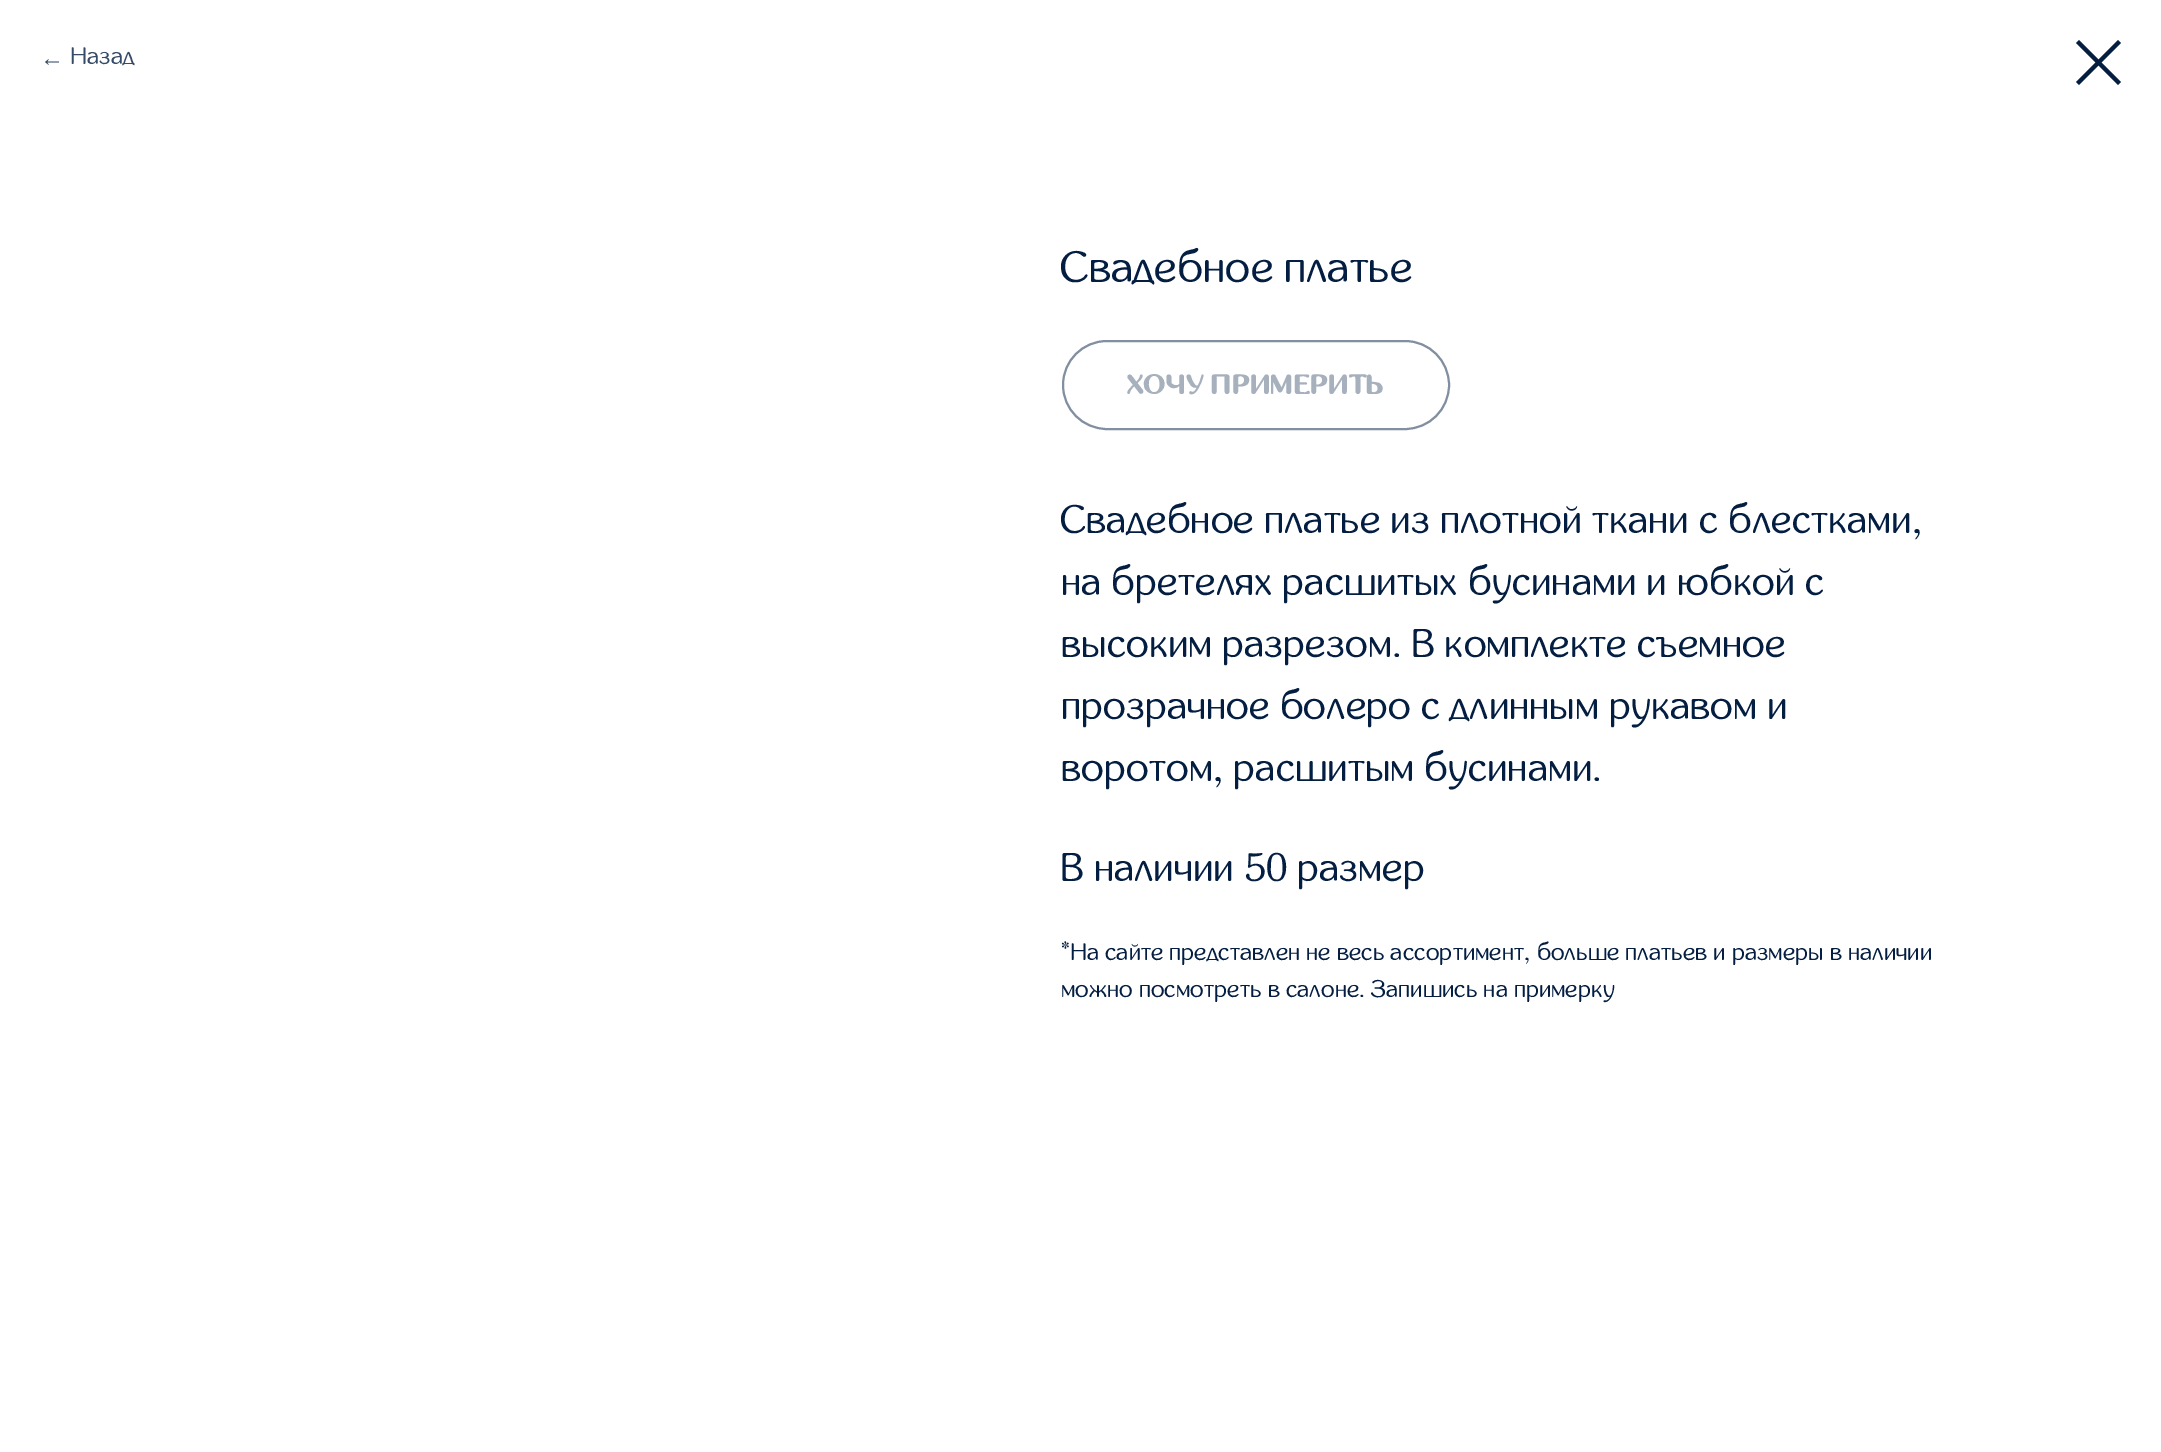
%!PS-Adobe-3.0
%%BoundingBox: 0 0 2161 1452
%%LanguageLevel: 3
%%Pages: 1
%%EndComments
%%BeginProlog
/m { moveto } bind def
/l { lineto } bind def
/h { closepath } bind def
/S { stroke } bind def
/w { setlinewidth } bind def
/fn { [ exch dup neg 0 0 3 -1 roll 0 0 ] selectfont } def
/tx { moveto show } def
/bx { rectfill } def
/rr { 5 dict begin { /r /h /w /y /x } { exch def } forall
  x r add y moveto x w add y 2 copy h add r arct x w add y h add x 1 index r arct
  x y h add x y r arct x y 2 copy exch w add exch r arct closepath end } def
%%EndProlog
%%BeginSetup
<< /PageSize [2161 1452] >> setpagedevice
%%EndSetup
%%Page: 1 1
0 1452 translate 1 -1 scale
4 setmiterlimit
1 setgray
0 0 2161 1452 bx
/LiberationSans-Regular 24 fn
0.212 0.294 0.408 setrgbcolor
(←) 40 66 tx
/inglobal-Regular 24 fn
(Назад) 71 64 tx
0.016 0.118 0.259 setrgbcolor
2076 43 m 2079 40 l 2121 82 l 2118 85 l h eofill
2118 40 m 2121 43 l 2079 85 l 2076 82 l h eofill
/inglobal-Regular 44 fn
(Свадебное платье) 1061 282 tx
0.51 0.561 0.631 setrgbcolor
2 w
1063 341 386 88 44 rr S
/inglobal-Bold 28 fn
0.655 0.69 0.741 setrgbcolor
(ХОЧУ ПРИМЕРИТЬ) 1127 394 tx
/inglobal-Regular 40 fn
0.016 0.118 0.259 setrgbcolor
(Свадебное платье из плотной ткани с блестками,) 1061 533 tx
(на бретелях расшитых бусинами и юбкой с) 1061 595 tx
(высоким разрезом. В комплекте съемное) 1061 657 tx
(прозрачное болеро с длинным рукавом и) 1061 719 tx
(воротом, расшитым бусинами.) 1061 781 tx
(В наличии 50 размер) 1061 881 tx
/inglobal-Regular 24 fn
(*На сайте представлен не весь ассортимент, больше платьев и размеры в наличии) 1061 960 tx
(можно посмотреть в салоне. Запишись на примерку) 1061 997 tx
showpage
%%EOF
